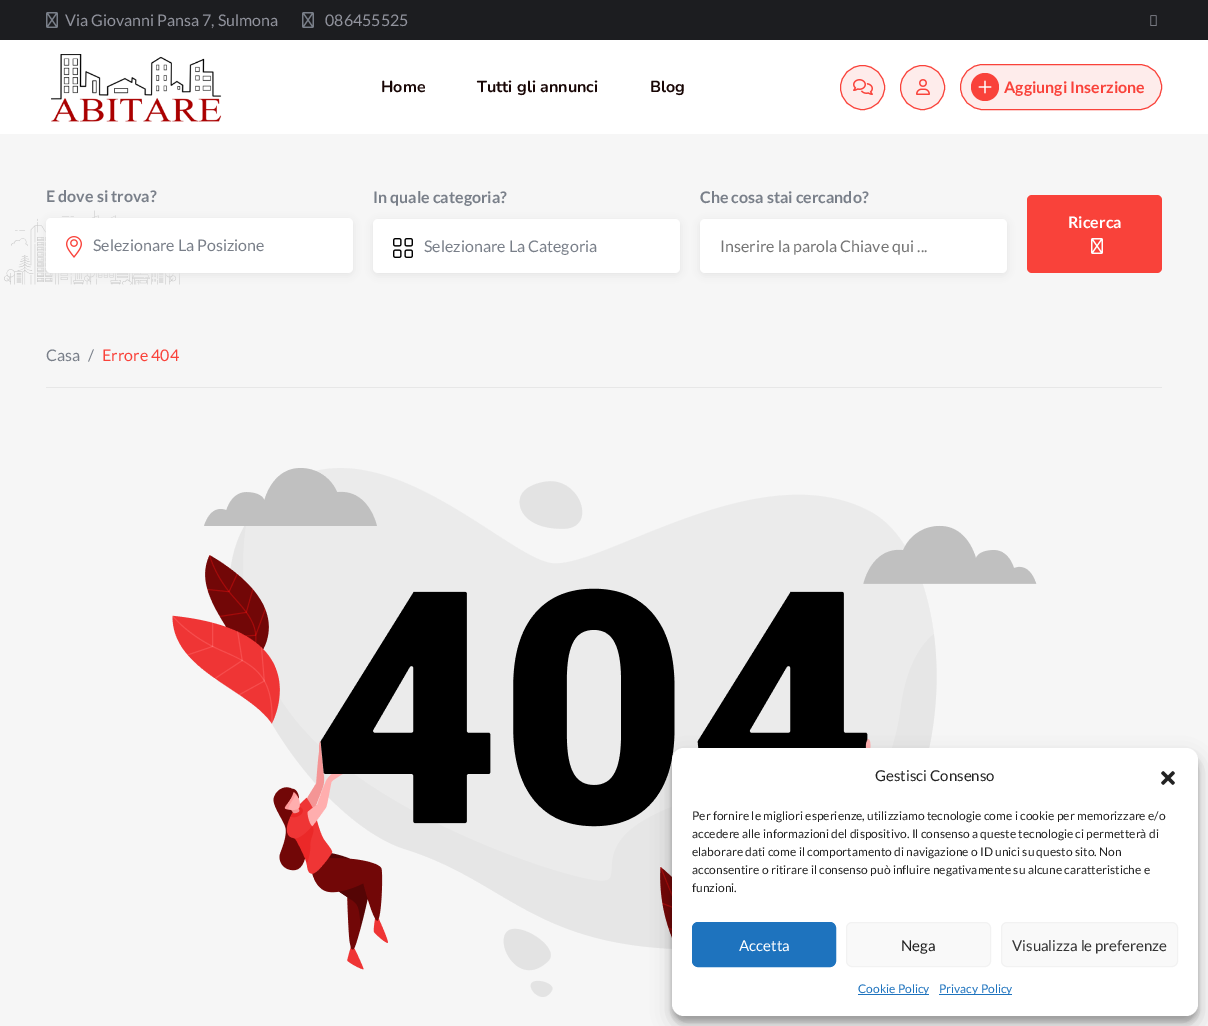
%!PS-Adobe-3.0
%%BoundingBox: 0 0 1208 1026
%%LanguageLevel: 3
%%Pages: 1
%%EndComments
%%BeginProlog
/f { fill } bind def
/S { stroke } bind def
/q { gsave } bind def
/Q { grestore } bind def
/fn { [ exch dup neg 0 0 3 -1 roll 0 0 ] selectfont } def
/tx { moveto show } def
/bx { rectfill } def
/al { dup .setfillconstantalpha .setstrokeconstantalpha } def
/ci { newpath 0 360 arc closepath } def
/rr { 5 dict begin { /r /h /w /y /x } { exch def } forall
  x r add y moveto x w add y 2 copy h add r arct x w add y h add x 1 index r arct
  x y h add x y r arct x y 2 copy exch w add exch r arct closepath end } def
/sh { 12 dict begin { /a /b /q /h /w /y /x } { exch def } forall gsave /was 0 def
  9 -2 -9 { dup b mul 4 div /e exch def 1 sub .425 mul 2.718 exch exp 1 add a .99 .min exch div /now exch def
    1 1 now sub 1 was sub div sub al /was now def
    w h .min e 2 mul add 0 gt { x e sub y e sub w e 2 mul add h e 2 mul add
      q e add b .6 mul add w h .min 2 div e add .min 0 .max rr fill } if } for grestore end } def
/im { 5 dict begin { /h /w /y /x /name } { exch def } forall
  gsave x y translate w h scale
  w h 8 [w 0 0 h 0 0] name (r) file false 3 colorimage grestore end } def
%%EndProlog
%%BeginSetup
<< /PageSize [1208 1026] /PageUsesTransparency true >> setpagedevice
%%EndSetup
%%Page: 1 1
0 .pushpdf14devicefilter
0 1026 translate 1 -1 scale
4 setmiterlimit
0.965 setgray
0 0 1208 1026 bx
0.11 0.114 0.125 setrgbcolor
0 0 1208 40 bx
(image0.raw) 46 12 12 16 im
/Lato-Regular 16 fn
0.569 0.576 0.616 setrgbcolor
(Via Giovanni Pansa 7, Sulmona) 65 26 tx
(image0.raw) 302 12 12 16 im
(086455525) 325 26 tx
(image1.raw) 1150 15 7 11 im
1 setgray
0 40 1208 94 bx
(image2.raw) 51 54 171 68 im
/Nunito-Bold 16 fn
0.094 0.024 0.02 setrgbcolor
(Home) 381 92 tx
(Tutti gli annunci) 477 92 tx
(Blog) 650 92 tx
0.996 0.925 0.922 setrgbcolor
862.5 87.5 22 ci q f Q
0.976 0.259 0.227 setrgbcolor
S
(image3.raw) 853 79 20 16 im
0.996 0.925 0.922 setrgbcolor
922.5 87.5 22 ci q f Q
0.976 0.259 0.227 setrgbcolor
S
(image4.raw) 916 79 14 16 im
0.996 0.925 0.922 setrgbcolor
960.5 64.5 201 45 22.5 rr q f Q
0.976 0.259 0.227 setrgbcolor
S
985 87 14 ci f
(image5.raw) 978 80 14 14 im
/Lato-Bold 16 fn
(Aggiungi Inserzione) 1004 93 tx
(image6.raw) 4 210 176 75 im
0.475 0.498 0.537 setrgbcolor
(E dove si trova?) 46 202 tx
0.894 setgray
46 220 307 55 5 4 1 sh
1 setgray
46 218 307 55 5 rr f
(image7.raw) 66 236 16 22 im
/Lato-Regular 16 fn
0.475 0.498 0.537 setrgbcolor
(Selezionare La Posizione) 93 251 tx
/Lato-Bold 16 fn
(In quale categoria?) 373 203 tx
0.894 setgray
373 221 307 54 5 4 1 sh
1 setgray
373 219 307 54 5 rr f
(image8.raw) 393 238 20 20 im
/Lato-Regular 16 fn
0.475 0.498 0.537 setrgbcolor
(Selezionare La Categoria) 424 252 tx
/Lato-Bold 16 fn
(Che cosa stai cercando?) 700 203 tx
0.894 setgray
700 221 307 54 5 4 1 sh
1 setgray
700 219 307 54 5 rr f
/Lato-Regular 16 fn
0.459 setgray
(Inserire la parola Chiave qui ...) 720 252 tx
0.976 0.259 0.227 setrgbcolor
1027 195 135 78 5 rr f
/Lato-Bold 16 fn
1 setgray
(Ricerca) 1068 228 tx
(image9.raw) 1091 238 12 16 im
0.906 setgray
46 387 1116 1 bx
/Lato-Regular 16 fn
0.475 0.498 0.537 setrgbcolor
(Casa) 46 361 tx
(/) 88 361 tx
0.976 0.259 0.227 setrgbcolor
(Errore 404) 102 361 tx
(image10.raw) 172 468 865 529 im
0 setgray
672 754 526 268 12 3 0.23 sh
672 758 526 268 12 10 0.19 sh
1 setgray
672 748 526 268 12 rr f
/Lato-Regular 15 fn
0.133 setgray
(Gestisci Consenso) 875 781 tx
(image11.raw) 1161 771 14 14 im
/Lato-Regular 12 fn
(Per fornire le migliori esperienze, utilizziamo tecnologie come i cookie per memorizzare e/o) 692 820 tx
(accedere alle informazioni del dispositivo. Il consenso a queste tecnologie ci permetterà di) 692 838 tx
(elaborare dati come il comportamento di navigazione o ID unici su questo sito. Non) 692 856 tx
(acconsentire o ritirare il consenso può influire negativamente su alcune caratteristiche e) 692 874 tx
(funzioni.) 692 892 tx
0.118 0.451 0.745 setrgbcolor
692.5 922.5 143 44 5.5 rr q f Q
S
/Lato-Regular 15 fn
1 setgray
(Accetta) 739 951 tx
0.976 setgray
846.5 922.5 144 44 5.5 rr q f Q
0.949 setgray
S
0.133 setgray
(Nega) 901 951 tx
0.976 setgray
1001.5 922.5 176 44 5.5 rr q f Q
0.949 setgray
S
0.2 setgray
(Visualizza le preferenze) 1012 951 tx
0.118 0.451 0.745 setrgbcolor
858 994 71 1 bx
/Lato-Regular 12 fn
(Cookie Policy) 858 993 tx
939 994 73 1 bx
(Privacy Policy) 939 993 tx
.poppdf14devicefilter showpage
%%EOF
